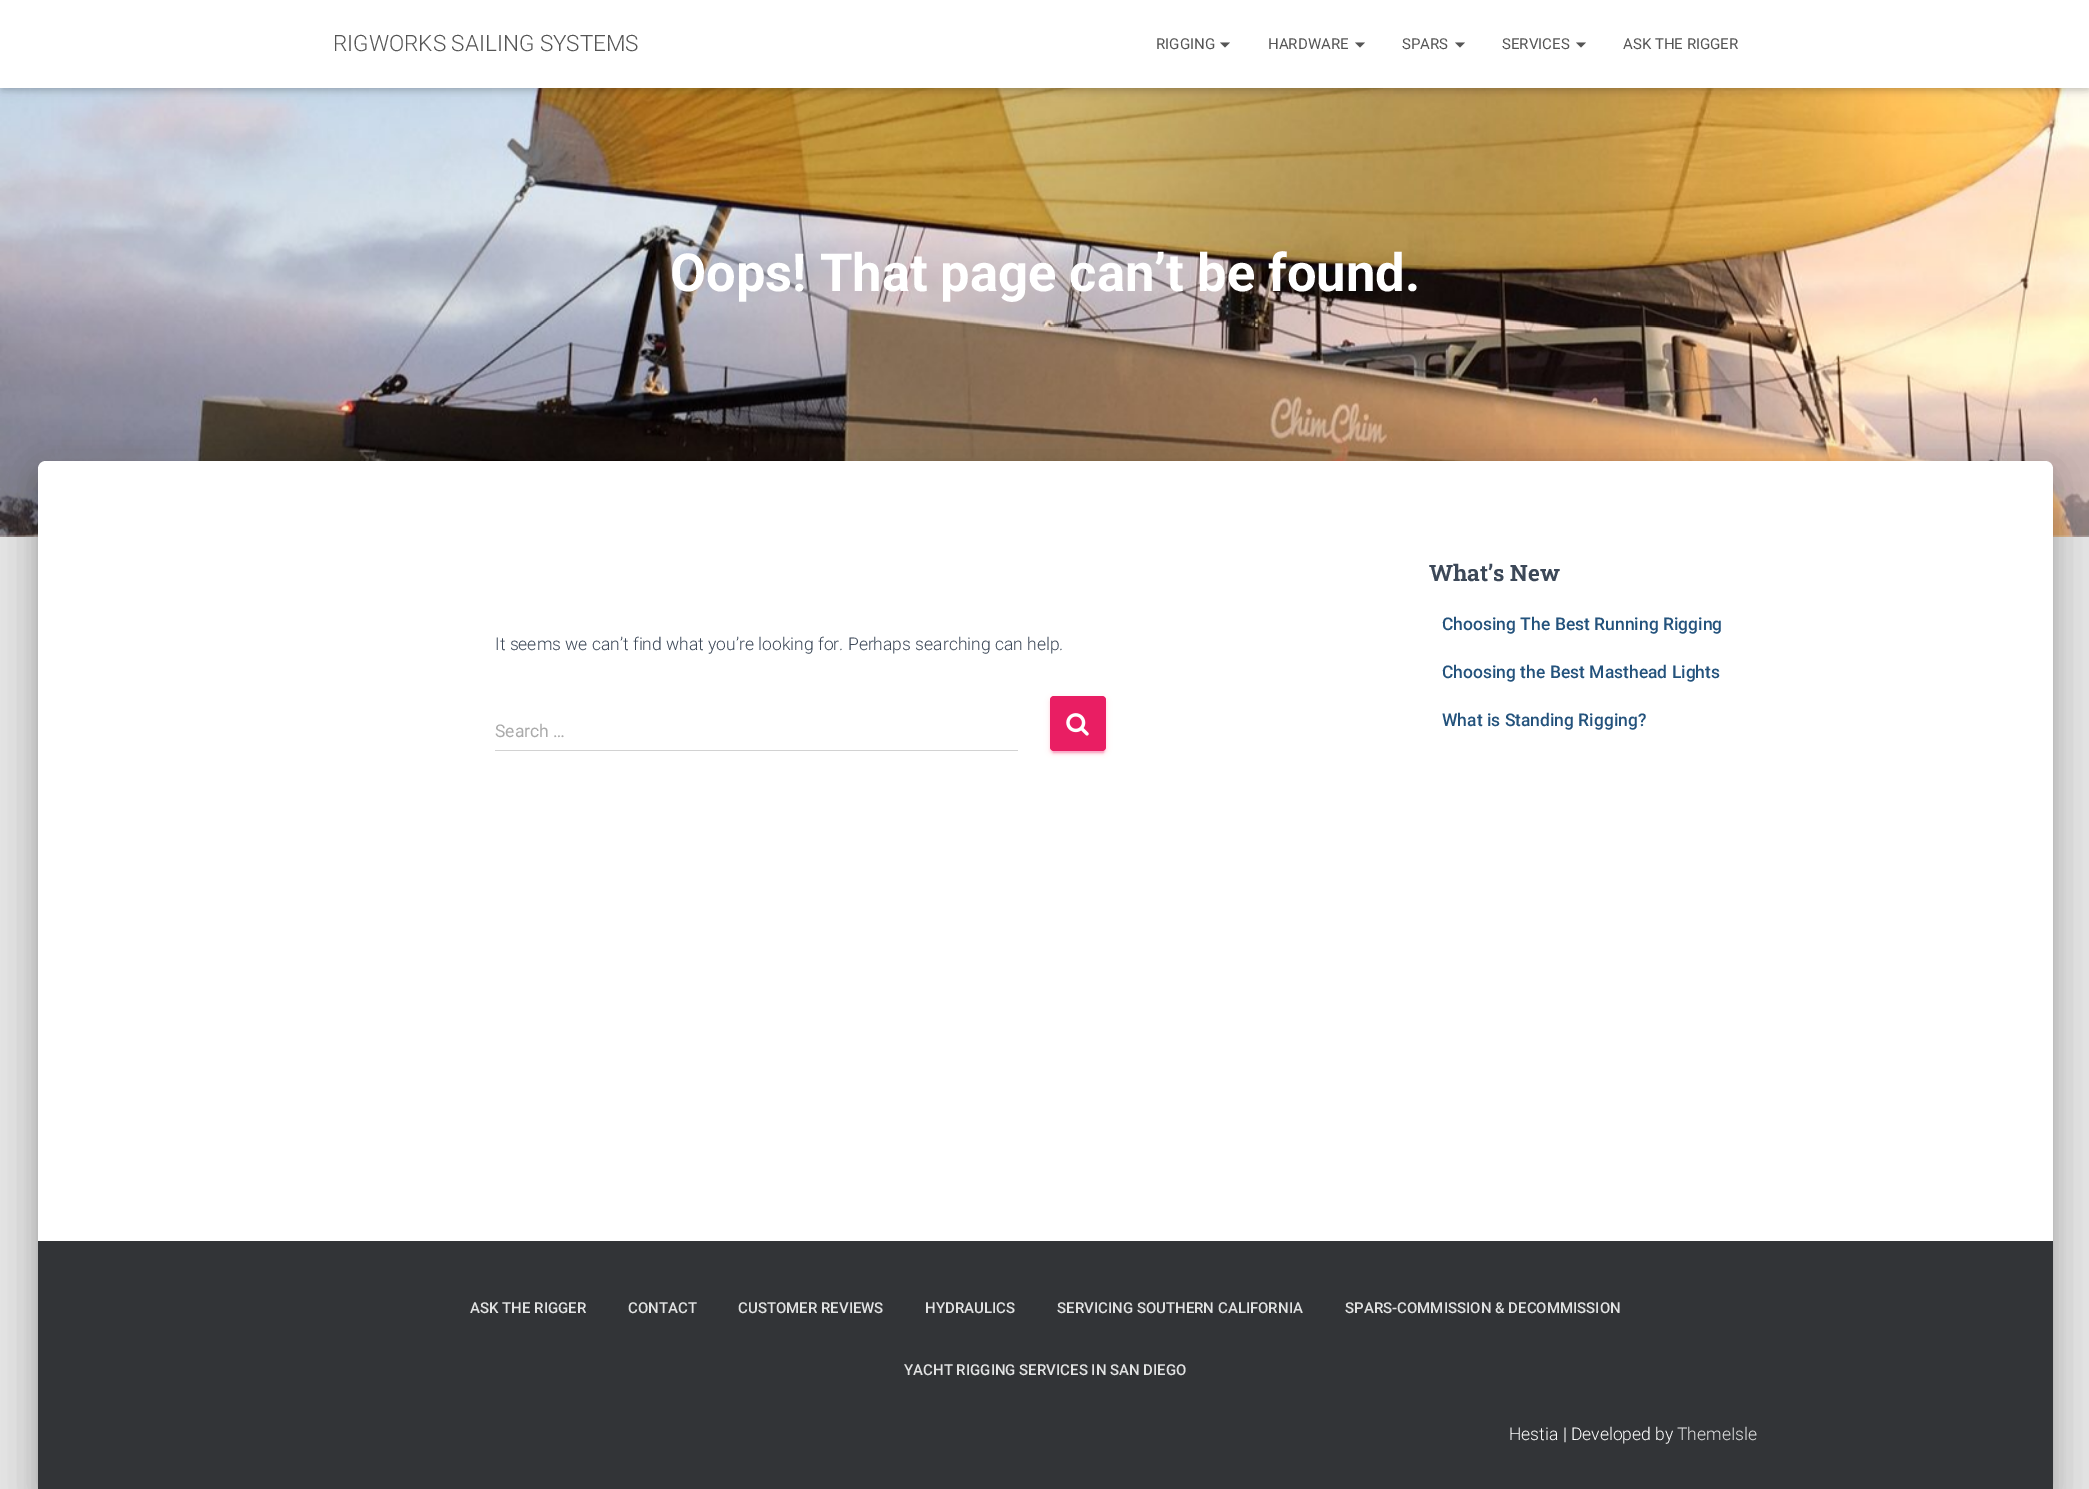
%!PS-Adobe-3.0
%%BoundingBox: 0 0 2089 1489
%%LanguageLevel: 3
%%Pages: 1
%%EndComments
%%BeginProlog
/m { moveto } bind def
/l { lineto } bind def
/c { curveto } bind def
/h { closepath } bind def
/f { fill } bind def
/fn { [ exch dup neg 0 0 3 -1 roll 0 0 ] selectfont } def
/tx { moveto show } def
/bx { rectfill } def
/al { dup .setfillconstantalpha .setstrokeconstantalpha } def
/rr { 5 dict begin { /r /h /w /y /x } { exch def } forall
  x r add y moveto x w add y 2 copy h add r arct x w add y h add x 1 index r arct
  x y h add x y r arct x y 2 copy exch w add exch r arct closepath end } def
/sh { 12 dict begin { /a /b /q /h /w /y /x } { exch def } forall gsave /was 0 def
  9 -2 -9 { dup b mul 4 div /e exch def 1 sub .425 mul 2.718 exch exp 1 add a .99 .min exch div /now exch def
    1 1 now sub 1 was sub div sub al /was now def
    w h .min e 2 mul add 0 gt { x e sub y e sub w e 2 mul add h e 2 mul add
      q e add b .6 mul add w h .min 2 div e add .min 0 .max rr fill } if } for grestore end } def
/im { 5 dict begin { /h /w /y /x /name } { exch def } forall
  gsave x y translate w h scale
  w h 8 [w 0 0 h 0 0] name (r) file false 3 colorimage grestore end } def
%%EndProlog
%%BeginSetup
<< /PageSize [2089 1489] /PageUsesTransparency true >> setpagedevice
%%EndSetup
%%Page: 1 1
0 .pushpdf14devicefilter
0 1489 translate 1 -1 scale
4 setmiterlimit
0.898 setgray
0 0 2089 1489 bx
(image0.raw) 0 88 2089 449 im
0 setgray
3 8 2085 82 0 3 0.1 sh
0 1 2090 88 0 6 0.12 sh
8 9 2075 72 0 6 0.42 sh
1 setgray
0 0 2089 88 bx
/Roboto-Light 22.5 fn
0.333 setgray
(RIGWORKS SAILING SYSTEMS) 333 51 tx
/Roboto-Regular 15 fn
(RIGGING) 1156 49 tx
1220 42.5 m 1230 42.5 l 1225 47.5 l h f
(HARDWARE) 1268 49 tx
1355 42.5 m 1365 42.5 l 1360 47.5 l h f
(SPARS) 1402 49 tx
1455 42.5 m 1465 42.5 l 1460 47.5 l h f
(SERVICES) 1502 49 tx
1576 42.5 m 1586 42.5 l 1581 47.5 l h f
(ASK THE RIGGER) 1623 49 tx
/Roboto-Bold 52.5 fn
1 setgray
(Oops! That page can’t be found.) 670 291 tx
0 setgray
44 478 2002 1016 1 6 0.2 sh
31 463 2028 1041 14 19 0.12 sh
35 479 2020 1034 10 15 0.14 sh
1 setgray
46 461 m 2045 461 l 2049.5 461 2053 464.5 2053 469 c 2053 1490 l 38 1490 l 38 469 l 38 464.5 41.5 461 46 461 c h f
/Roboto-Light 17.5 fn
0.235 0.282 0.345 setrgbcolor
(It seems we can’t find what you’re looking for. Perhaps searching can help.) 495 650 tx
/Roboto-Regular 17.5 fn
0.667 setgray
(Search …) 495 737 tx
0.824 setgray
495 750 523 1 bx
0.914 0.118 0.388 setrgbcolor
1050 698 56 55 4 3 0.12 sh
1053 703 51 50 1 0.5 0.2 sh
1050 699 56 55 4 1 0.14 sh
1050 696 56 55 4 rr f
(image1.raw) 1066 713 23 23 im
/RobotoSlab-Bold 22.5 fn
0.235 0.282 0.345 setrgbcolor
(What’s New) 1429 581 tx
/Roboto-Medium 17.5 fn
0.137 0.322 0.486 setrgbcolor
(Choosing The Best Running Rigging) 1442 630 tx
(Choosing the Best Masthead Lights) 1442 678 tx
(What is Standing Rigging?) 1442 726 tx
0.196 0.204 0.216 setrgbcolor
38 1241 2015 248 bx
/Roboto-Medium 15 fn
0.886 0.89 0.89 setrgbcolor
(ASK THE RIGGER) 470 1313 tx
(CONTACT) 628 1313 tx
(CUSTOMER REVIEWS) 738 1313 tx
(HYDRAULICS) 925 1313 tx
(SERVICING SOUTHERN CALIFORNIA) 1057 1313 tx
(SPARS-COMMISSION & DECOMMISSION) 1345 1313 tx
(YACHT RIGGING SERVICES IN SAN DIEGO) 904 1375 tx
/Roboto-Light 17.5 fn
1 setgray
(Hestia | Developed by) 1509 1440 tx
0.886 0.89 0.89 setrgbcolor
(ThemeIsle) 1677 1440 tx
.poppdf14devicefilter showpage
%%EOF
